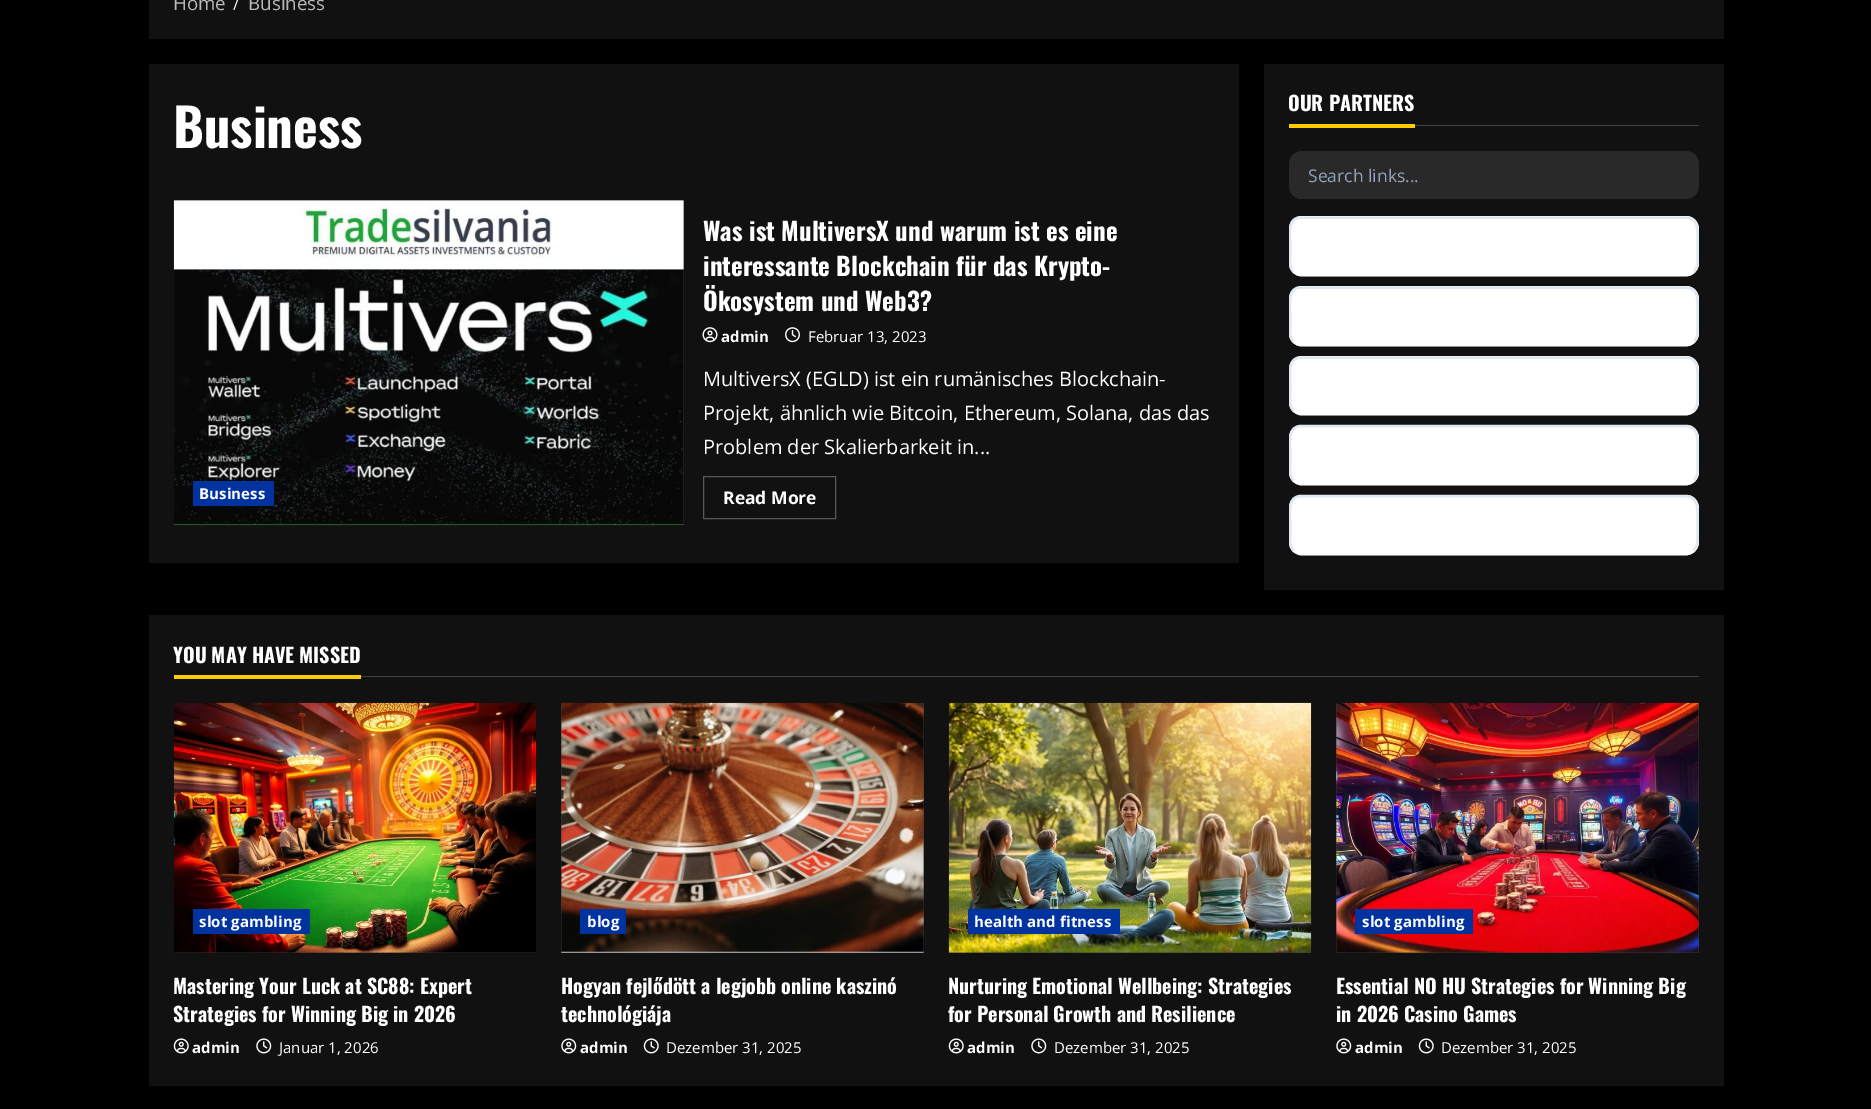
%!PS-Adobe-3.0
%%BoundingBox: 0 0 1871 1109
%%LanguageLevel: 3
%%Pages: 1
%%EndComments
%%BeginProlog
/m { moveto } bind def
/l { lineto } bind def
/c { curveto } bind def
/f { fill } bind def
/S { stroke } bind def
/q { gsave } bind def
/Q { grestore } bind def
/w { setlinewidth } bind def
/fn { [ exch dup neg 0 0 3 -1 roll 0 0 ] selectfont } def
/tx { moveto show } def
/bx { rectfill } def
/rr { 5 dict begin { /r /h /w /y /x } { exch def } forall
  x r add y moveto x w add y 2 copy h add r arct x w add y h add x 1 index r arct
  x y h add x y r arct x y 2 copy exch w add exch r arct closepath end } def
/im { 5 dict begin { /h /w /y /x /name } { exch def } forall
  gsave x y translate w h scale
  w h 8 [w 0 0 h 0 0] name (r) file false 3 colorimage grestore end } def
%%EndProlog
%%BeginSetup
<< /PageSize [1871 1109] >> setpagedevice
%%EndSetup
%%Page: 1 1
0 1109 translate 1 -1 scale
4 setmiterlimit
0 setgray
0 0 1871 1109 bx
0.067 setgray
149 0 1575 39 bx
/OpenSans-Regular 18.75 fn
0.722 setgray
(Home) 173 10 tx
/OpenSans-Regular 16 fn
1 setgray
(/) 233 10 tx
/OpenSans-Regular 18.75 fn
0.722 setgray
(Business) 248 10 tx
0.067 setgray
149 64 1090 499 bx
/Oswald-Bold 52.5 fn
1 setgray
(Business) 173 148 tx
0.227 setgray
174 200 510 325 bx
(image0.raw) 173 200 511 326 im
0 0.2 0.627 setrgbcolor
193 481 81 25 bx
/OpenSans-Bold 15 fn
1 setgray
199 499 m 0.1 0 (Business) ashow
/Oswald-Bold 25 fn
(Was ist MultiversX und warum ist es eine) 703 241 tx
(interessante Blockchain für das Krypto-) 703 276 tx
(Ökosystem und Web3?) 703 311 tx
(image1.raw) 702 327 16 16 im
/OpenSans-Bold 15 fn
(admin) 721 342 tx
(image2.raw) 785 327 15 16 im
/OpenSans-Regular 15 fn
(Februar 13, 2023) 808 342 tx
/OpenSans-Regular 20 fn
(MultiversX \(EGLD\) ist ein rumänisches Blockchain-) 703 386 tx
(Projekt, ähnlich wie Bitcoin, Ethereum, Solana, das das) 703 420 tx
(Problem der Skalierbarkeit in...) 703 454 tx
0.345 setgray
703.5 476.5 132 42 rectstroke
/OpenSans-Bold 17.5 fn
1 setgray
(Read More) 723 504 tx
0.067 setgray
1264 64 460 526 bx
0.255 setgray
1415 125 284 1 bx
/Oswald-Bold 20 fn
1 setgray
(OUR PARTNERS) 1288 111 tx
1 0.8 0 setrgbcolor
1289 124 126 4 bx
0.161 setgray
1289 151 410 48 13 rr f
/OpenSans-Regular 17.5 fn
0.58 0.639 0.722 setrgbcolor
(Search links...) 1308 182 tx
1 setgray
1289 216 410 60 13 rr f
2.5 w
1694 271.5 m 1692 274 1689 275 1686 275 c 1301 275 l 1298.5 275 1295.5 274 1293.5 271.5 c S
q
1289 216 410 349 rectclip
0.886 0.91 0.941 setrgbcolor
1293.5 271.5 m 1289.5 268 1290 263 1290 258 c 1290 240.5 l 1290 231.5 1288 217.5 1301 217.5 c 1686 217.5 l 1699.5 217.5 1697.5 231.5 1697.5 240.5 c 1697.5 258 l 1697.5 263 1698 268 1694 271.5 c S
Q
1289 286 410 60 13 rr f
1694 341.5 m 1692 344 1689 345 1686 345 c 1301 345 l 1298.5 345 1295.5 344 1293.5 341.5 c S
q
1289 216 410 349 rectclip
0.886 0.91 0.941 setrgbcolor
1293.5 341.5 m 1289.5 338 1290 333 1290 328 c 1290 310.5 l 1290 301.5 1288 287.5 1301 287.5 c 1686 287.5 l 1699.5 287.5 1697.5 301.5 1697.5 310.5 c 1697.5 328 l 1697.5 333 1698 338 1694 341.5 c S
Q
1289 356 410 59 13 rr f
1694 410.5 m 1692 412.5 1689 414 1686 414 c 1301 414 l 1298.5 414 1295.5 412.5 1293.5 410.5 c S
q
1289 216 410 349 rectclip
0.886 0.91 0.941 setrgbcolor
1293.5 410.5 m 1289.5 406.5 1290 402 1290 397 c 1290 380 l 1290 371.5 1288.5 357.5 1301 357.5 c 1686 357.5 l 1699 357.5 1697.5 371.5 1697.5 380 c 1697.5 397 l 1697.5 402 1698 406.5 1694 410.5 c S
Q
1289 425 410 60 13 rr f
1694 480.5 m 1692 482.5 1689 484 1686 484 c 1301 484 l 1298.5 484 1295.5 482.5 1293.5 480.5 c S
q
1289 216 410 349 rectclip
0.886 0.91 0.941 setrgbcolor
1293.5 480.5 m 1289.5 476.5 1290 471.5 1290 466.5 c 1290 449 l 1290 440.5 1288 426.5 1301 426 c 1686 426 l 1699.5 426.5 1697.5 440.5 1697.5 449 c 1697.5 466.5 l 1697.5 471.5 1698 476.5 1694 480.5 c S
Q
1289 495 410 60 13 rr f
1694 550.5 m 1692 552.5 1689 554 1686 554 c 1301 554 l 1298.5 554 1295.5 552.5 1293.5 550.5 c S
q
1289 216 410 349 rectclip
0.886 0.91 0.941 setrgbcolor
1293.5 550.5 m 1289.5 546.5 1290 541.5 1290 536.5 c 1290 519 l 1290 510.5 1288 496.5 1301 496 c 1686 496 l 1699.5 496.5 1697.5 510.5 1697.5 519 c 1697.5 536.5 l 1697.5 541.5 1698 546.5 1694 550.5 c S
Q
0.067 setgray
149 615 1575 471 bx
0.255 setgray
361 676 1338 1 bx
/Oswald-Bold 20 fn
1 setgray
(YOU MAY HAVE MISSED) 173 663 tx
1 0.8 0 setrgbcolor
174 675 187 4 bx
0.227 setgray
174 952 362 1 bx
(image3.raw) 173 702 364 251 im
0 0.2 0.627 setrgbcolor
193 909 117 25 bx
/OpenSans-Bold 15 fn
1 setgray
199 927 m 0.1 0 (slot gambling) ashow
/Oswald-Bold 20 fn
(Mastering Your Luck at SC88: Expert) 173 994 tx
(Strategies for Winning Big in 2026) 173 1022 tx
(image4.raw) 173 1038 16 16 im
/OpenSans-Bold 15 fn
(admin) 192 1053 tx
(image5.raw) 256 1038 16 16 im
/OpenSans-Regular 15 fn
(Januar 1, 2026) 279 1053 tx
0.227 setgray
561 703 363 250 bx
(image6.raw) 561 702 363 251 im
0 0.2 0.627 setrgbcolor
580 909 46 25 bx
/OpenSans-Bold 15 fn
1 setgray
587 927 m 0.1 0 (blog) ashow
/Oswald-Bold 20 fn
(Hogyan fejlődött a legjobb online kaszinó) 561 994 tx
(technológiája) 561 1022 tx
(image7.raw) 561 1038 16 16 im
/OpenSans-Bold 15 fn
(admin) 580 1053 tx
(image8.raw) 643 1038 16 16 im
/OpenSans-Regular 15 fn
(Dezember 31, 2025) 666 1053 tx
0.227 setgray
949 952 362 1 bx
(image9.raw) 948 702 364 251 im
0 0.2 0.627 setrgbcolor
968 909 152 25 bx
/OpenSans-Bold 15 fn
1 setgray
974 927 m 0.1 0 (health and fitness) ashow
/Oswald-Bold 20 fn
(Nurturing Emotional Wellbeing: Strategies) 948 994 tx
(for Personal Growth and Resilience) 948 1022 tx
(image4.raw) 948 1038 16 16 im
/OpenSans-Bold 15 fn
(admin) 967 1053 tx
(image5.raw) 1031 1038 16 16 im
/OpenSans-Regular 15 fn
(Dezember 31, 2025) 1054 1053 tx
0.227 setgray
1336 703 363 250 bx
(image10.raw) 1336 702 363 251 im
0 0.2 0.627 setrgbcolor
1355 909 118 25 bx
/OpenSans-Bold 15 fn
1 setgray
1362 927 m 0.1 0 (slot gambling) ashow
/Oswald-Bold 20 fn
(Essential NO HU Strategies for Winning Big) 1336 994 tx
(in 2026 Casino Games) 1336 1022 tx
(image7.raw) 1336 1038 16 16 im
/OpenSans-Bold 15 fn
(admin) 1355 1053 tx
(image8.raw) 1418 1038 16 16 im
/OpenSans-Regular 15 fn
(Dezember 31, 2025) 1441 1053 tx
showpage
%%EOF
